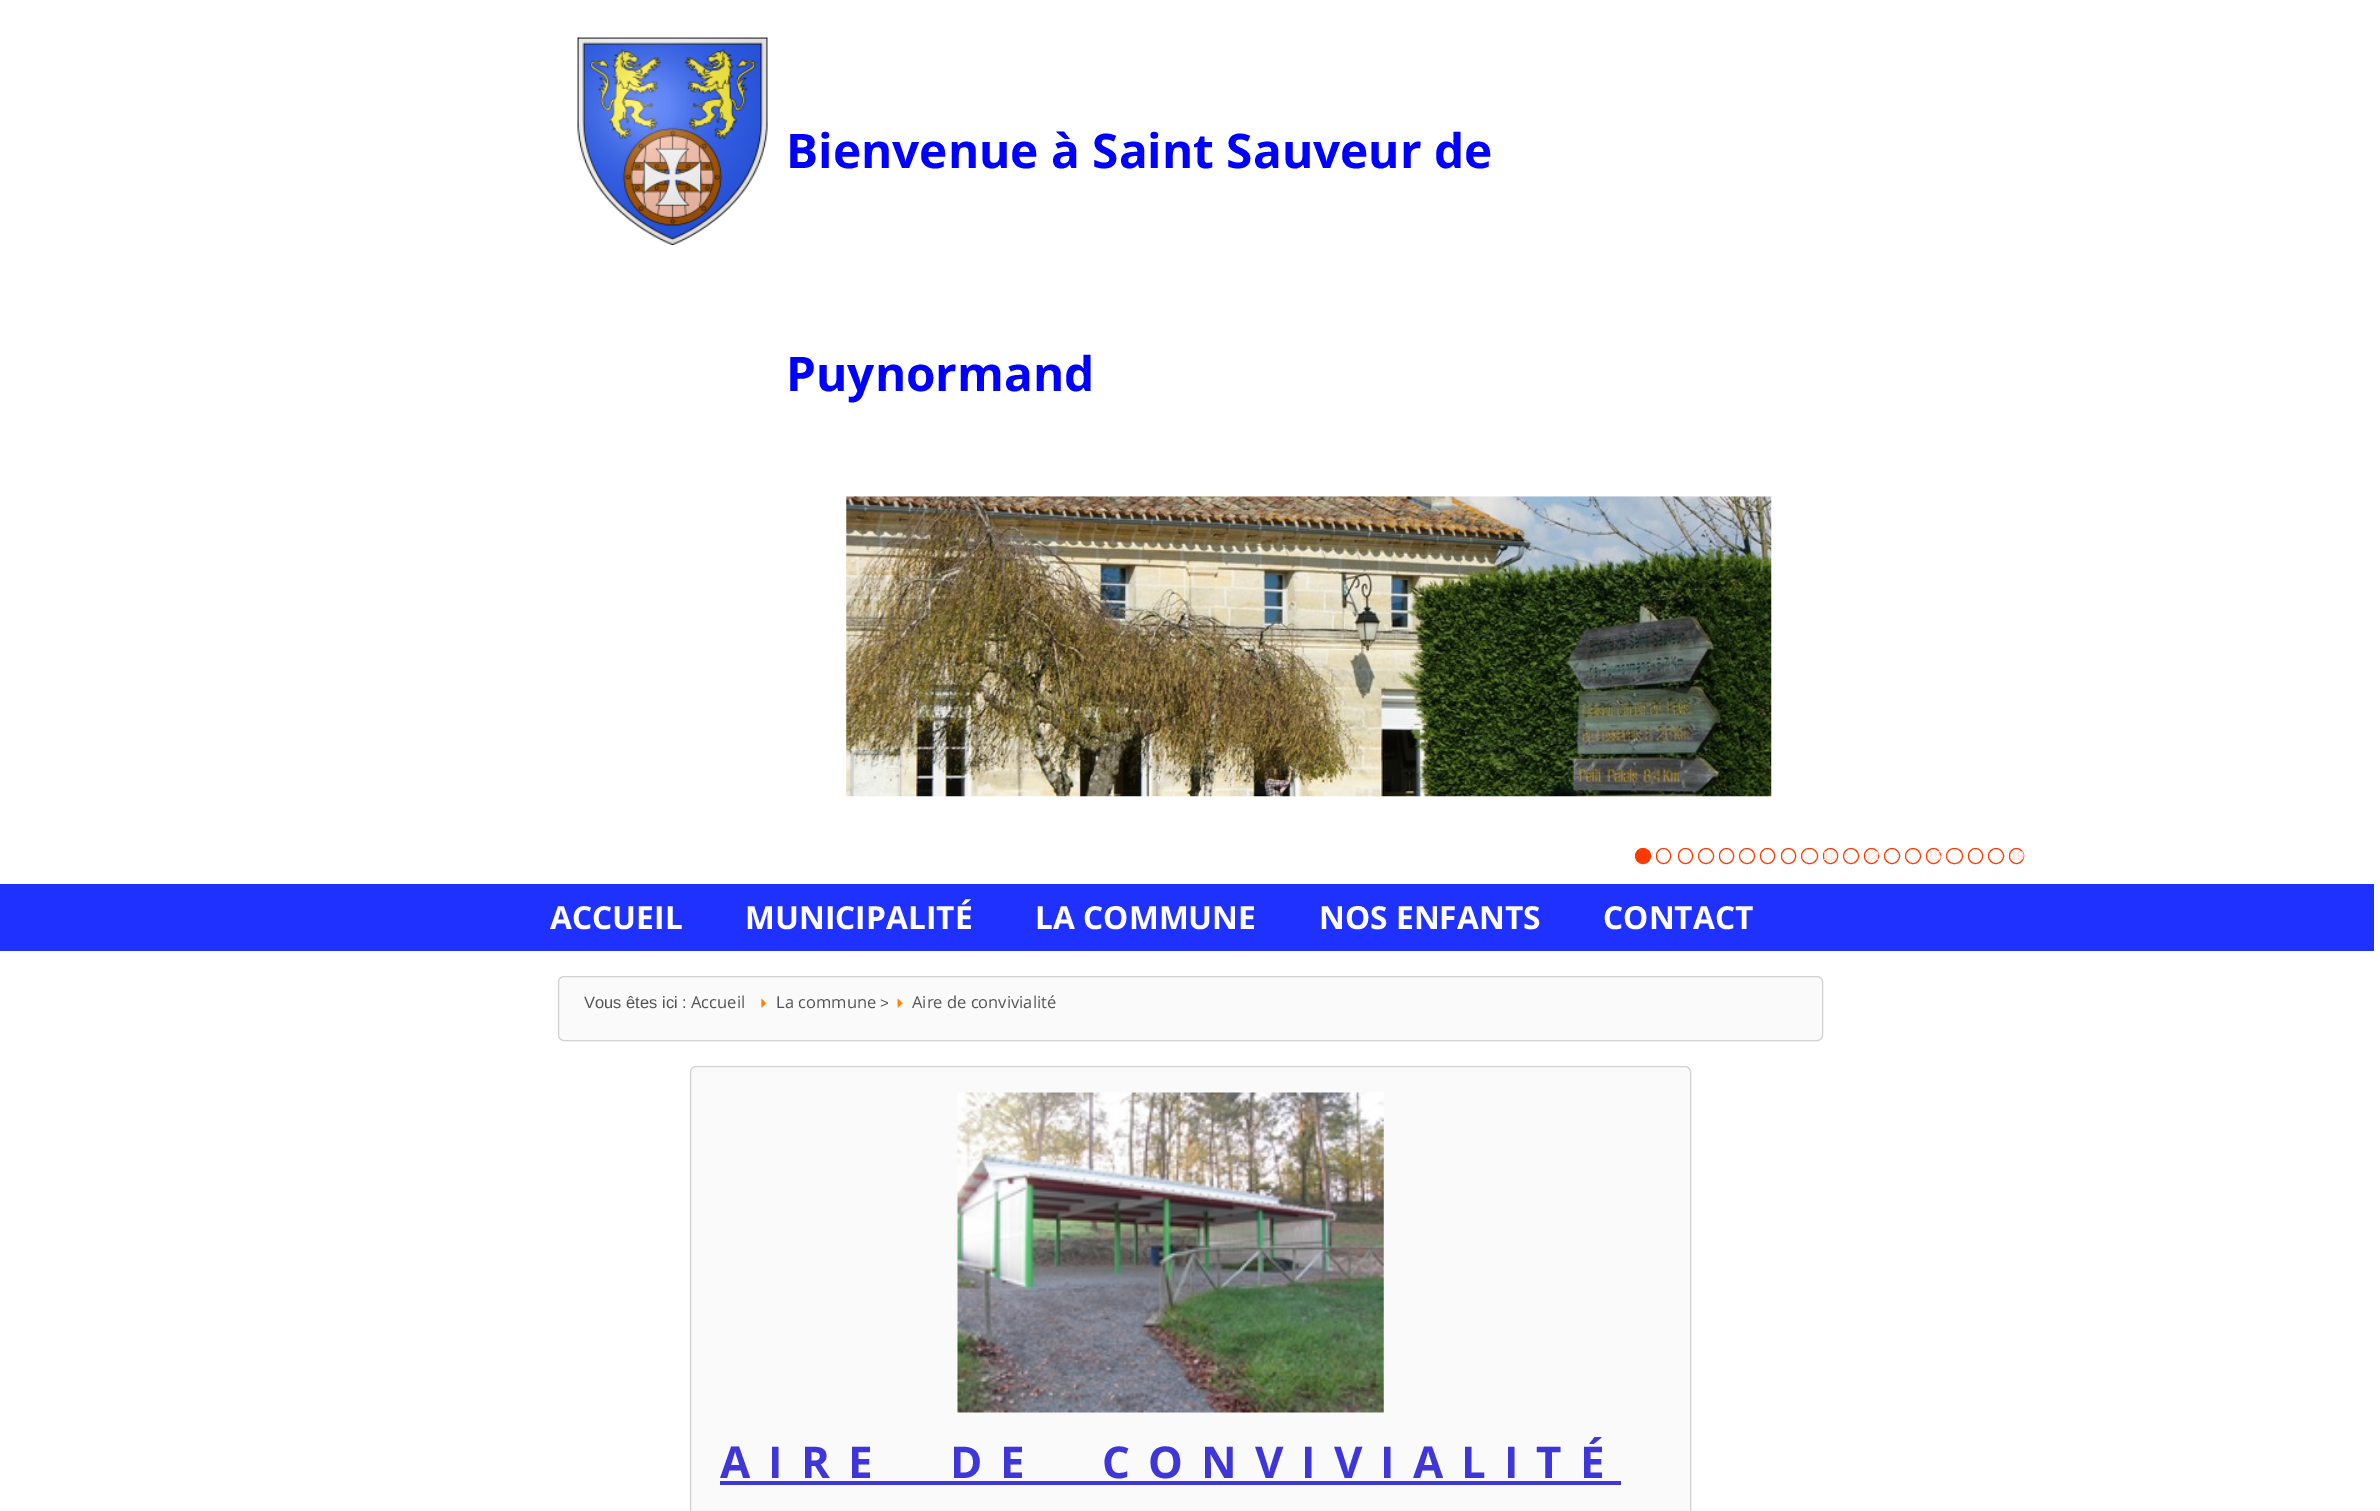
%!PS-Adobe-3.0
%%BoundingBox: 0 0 2380 1511
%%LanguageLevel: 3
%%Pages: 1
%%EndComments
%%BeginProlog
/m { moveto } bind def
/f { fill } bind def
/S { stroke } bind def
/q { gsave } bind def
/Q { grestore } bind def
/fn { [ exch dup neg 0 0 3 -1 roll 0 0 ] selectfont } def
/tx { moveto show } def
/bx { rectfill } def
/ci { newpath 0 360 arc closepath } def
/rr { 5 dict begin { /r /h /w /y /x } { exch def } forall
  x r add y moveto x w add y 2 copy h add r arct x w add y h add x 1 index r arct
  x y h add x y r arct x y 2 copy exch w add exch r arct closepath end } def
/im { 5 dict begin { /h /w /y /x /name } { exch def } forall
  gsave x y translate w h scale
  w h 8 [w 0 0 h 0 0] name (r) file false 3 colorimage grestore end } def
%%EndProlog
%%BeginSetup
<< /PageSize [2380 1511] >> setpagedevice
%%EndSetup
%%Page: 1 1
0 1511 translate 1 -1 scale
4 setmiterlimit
1 setgray
0 0 2380 1511 bx
(image0.raw) 577 37 191 208 im
/OpenSans-Bold 47.75 fn
0 0 1 setrgbcolor
(Bienvenue à Saint Sauveur de) 786 168 tx
(Puynormand) 786 391 tx
(image1.raw) 846 496 926 301 im
1 0.224 0 setrgbcolor
1643 856 7.5 ci q f Q
S
1656.5 848.5 14 15 7 rr S
1678.5 848.5 14 15 7 rr S
1706 856 7.5 ci S
1719.5 848.5 14 15 7 rr S
1747 856 7.5 ci S
1760.5 848.5 14 15 7 rr S
1781.5 848.5 14 15 7 rr S
1801.5 848.5 16 15 7.5 rr S
1823.5 848.5 14 15 7 rr S
/LiberationSans-Bold 13 fn
1 0.906 0.878 setrgbcolor
(10) 1823 860 tx
1 0.224 0 setrgbcolor
1851 856 7.5 ci S
1864.5 848.5 14 15 7 rr S
1 0.906 0.878 setrgbcolor
(12) 1865 860 tx
1 0.224 0 setrgbcolor
1892 856 7.5 ci S
1913 856 7.5 ci S
1926.5 848.5 14 15 7 rr S
1 0.906 0.878 setrgbcolor
(15) 1927 860 tx
1 0.224 0 setrgbcolor
1946.5 848.5 16 15 7.5 rr S
1968.5 848.5 14 15 7 rr S
1996 856 7.5 ci S
2009.5 848.5 14 15 7 rr S
1 0.882 0.851 setrgbcolor
(19) 2010 860 tx
0.122 0.192 1 setrgbcolor
0 884 2374 67 bx
/OpenSans-Bold 31.75 fn
1 setgray
(ACCUEIL) 550 929 tx
(MUNICIPALITÉ) 745 929 tx
(LA COMMUNE) 1035 929 tx
(NOS ENFANTS) 1319 929 tx
(CONTACT) 1603 929 tx
0.98 setgray
558.5 976.5 1264 64 5.5 rr q f Q
0.827 0.82 0.82 setrgbcolor
S
/LiberationSans-Regular 16.5 fn
0.333 setgray
(Vous êtes ici :) 584 1008 tx
/OpenSans-Regular 16.5 fn
(Accueil) 691 1008 tx
(image2.raw) 761 998 6 10 im
(La commune) 776 1008 tx
/LiberationSans-Regular 15 fn
(>) 880 1008 tx
(image3.raw) 897 998 6 10 im
/OpenSans-Regular 16.5 fn
(Aire de convivialité) 912 1008 tx
0.98 setgray
690.5 1066.5 1000 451 5.5 rr q f Q
0.827 0.82 0.82 setrgbcolor
S
(image4.raw) 957 1092 427 321 im
/OpenSans-Bold 43.85 fn
0.243 0.212 0.851 setrgbcolor
720 1478 m 30 0 32 18 0 (AIRE DE CONVIVIALITÉ) awidthshow
720 1481 901 4 bx
showpage
%%EOF
